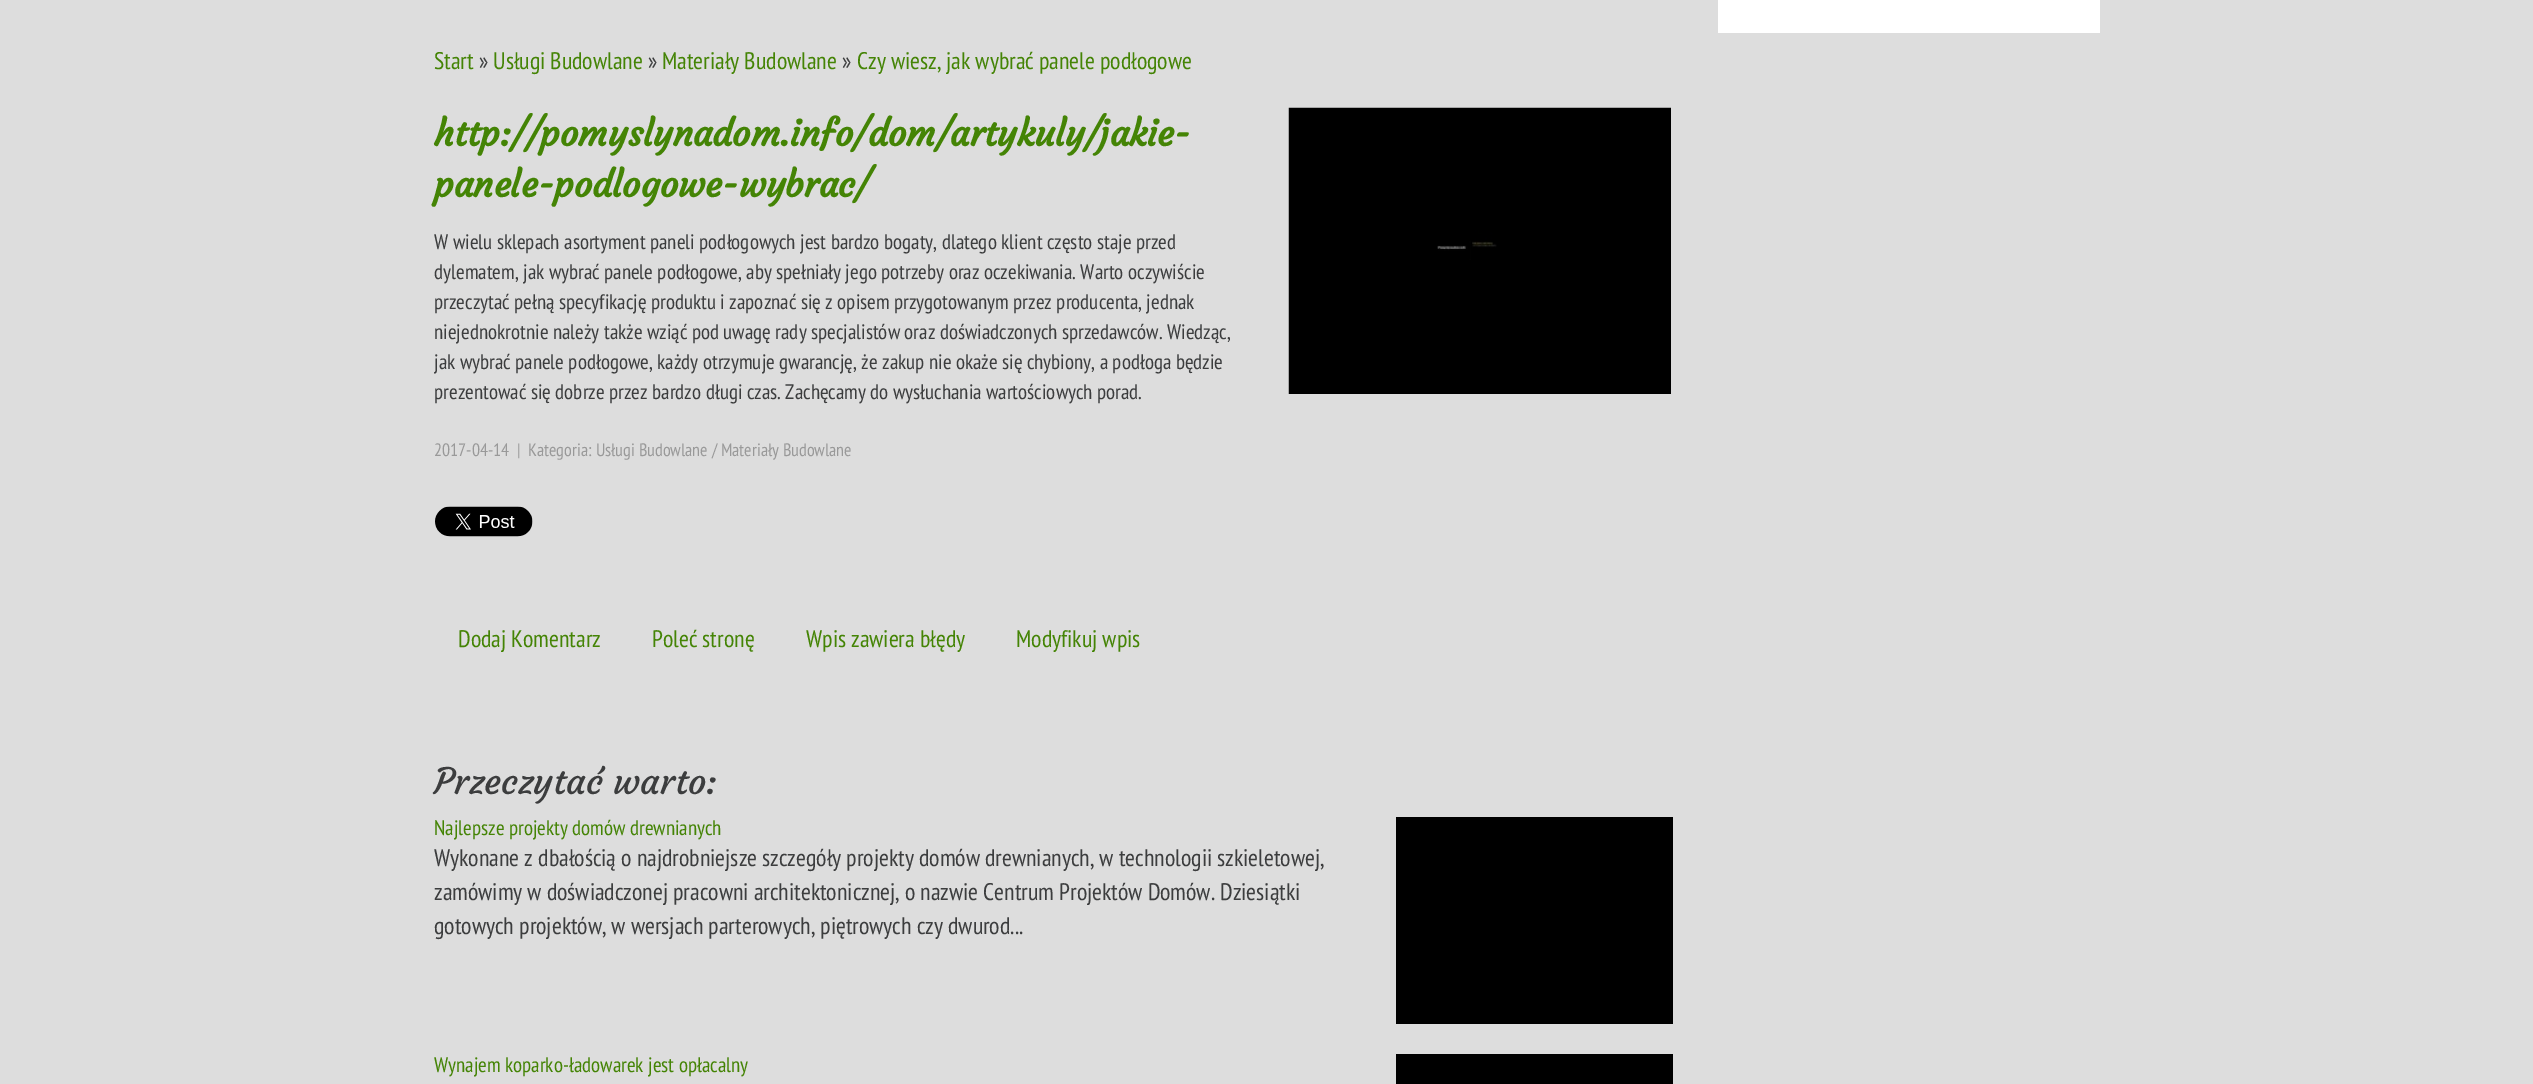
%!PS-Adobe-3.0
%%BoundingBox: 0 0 2533 1084
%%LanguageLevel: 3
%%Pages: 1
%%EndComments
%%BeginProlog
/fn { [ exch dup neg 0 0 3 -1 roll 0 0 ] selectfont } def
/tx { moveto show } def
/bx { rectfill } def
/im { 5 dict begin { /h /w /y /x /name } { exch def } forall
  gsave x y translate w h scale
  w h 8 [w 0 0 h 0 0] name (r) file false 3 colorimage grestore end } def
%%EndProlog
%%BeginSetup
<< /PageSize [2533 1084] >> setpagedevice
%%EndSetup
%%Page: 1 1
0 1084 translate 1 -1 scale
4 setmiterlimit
0.867 setgray
0 0 2533 1084 bx
1 setgray
1718 0 382 33 bx
/PTSansNarrow-Regular 24 fn
0.267 0.518 0.02 setrgbcolor
(Start) 434 69 tx
0.235 0.239 0.243 setrgbcolor
(») 479 69 tx
0.267 0.518 0.02 setrgbcolor
(Usługi Budowlane) 493 69 tx
0.235 0.239 0.243 setrgbcolor
(») 648 69 tx
0.267 0.518 0.02 setrgbcolor
(Materiały Budowlane) 662 69 tx
0.235 0.239 0.243 setrgbcolor
(») 842 69 tx
0.267 0.518 0.02 setrgbcolor
(Czy wiesz, jak wybrać panele podłogowe) 857 69 tx
/Courgette-Bold 36 fn
(http://pomyslynadom.info/dom/artykuly/jakie-) 434 146 tx
(panele-podlogowe-wybrac/) 434 197 tx
/PTSansNarrow-Regular 21 fn
0.235 0.239 0.243 setrgbcolor
(W wielu sklepach asortyment paneli podłogowych jest bardzo bogaty, dlatego klient często staje przed) 434 249 tx
(dylematem, jak wybrać panele podłogowe, aby spełniały jego potrzeby oraz oczekiwania. Warto oczywiście) 434 279 tx
(przeczytać pełną specyfikację produktu i zapoznać się z opisem przygotowanym przez producenta, jednak) 434 309 tx
(niejednokrotnie należy także wziąć pod uwagę rady specjalistów oraz doświadczonych sprzedawców. Wiedząc,) 434 339 tx
(jak wybrać panele podłogowe, każdy otrzymuje gwarancję, że zakup nie okaże się chybiony, a podłoga będzie) 434 369 tx
(prezentować się dobrze przez bardzo długi czas. Zachęcamy do wysłuchania wartościowych porad.) 434 399 tx
/PTSansNarrow-Regular 18 fn
0.6 setgray
(2017-04-14) 434 456 tx
(|) 517 456 tx
(Kategoria: Usługi Budowlane / Materiały Budowlane) 528 456 tx
(image0.raw) 435 506 98 31 im
(image1.raw) 1288 107 383 287 im
/PTSansNarrow-Regular 24 fn
0.267 0.518 0.02 setrgbcolor
(Dodaj Komentarz) 458 647 tx
(Poleć stronę) 652 647 tx
(Wpis zawiera błędy) 806 647 tx
(Modyfikuj wpis) 1016 647 tx
/Courgette-Regular 36 fn
0.235 0.239 0.243 setrgbcolor
(Przeczytać warto:) 434 794 tx
/PTSansNarrow-Regular 21 fn
0.267 0.518 0.02 setrgbcolor
(Najlepsze projekty domów drewnianych) 434 835 tx
/PTSansNarrow-Regular 24 fn
0.235 0.239 0.243 setrgbcolor
(Wykonane z dbałością o najdrobniejsze szczegóły projekty domów drewnianych, w technologii szkieletowej,) 434 866 tx
(zamówimy w doświadczonej pracowni architektonicznej, o nazwie Centrum Projektów Domów. Dziesiątki) 434 900 tx
(gotowych projektów, w wersjach parterowych, piętrowych czy dwurod...) 434 934 tx
0 setgray
1396 817 277 207 bx
/PTSansNarrow-Regular 21 fn
0.267 0.518 0.02 setrgbcolor
(Wynajem koparko-ładowarek jest opłacalny) 434 1072 tx
0 setgray
1396 1054 277 30 bx
showpage
%%EOF
